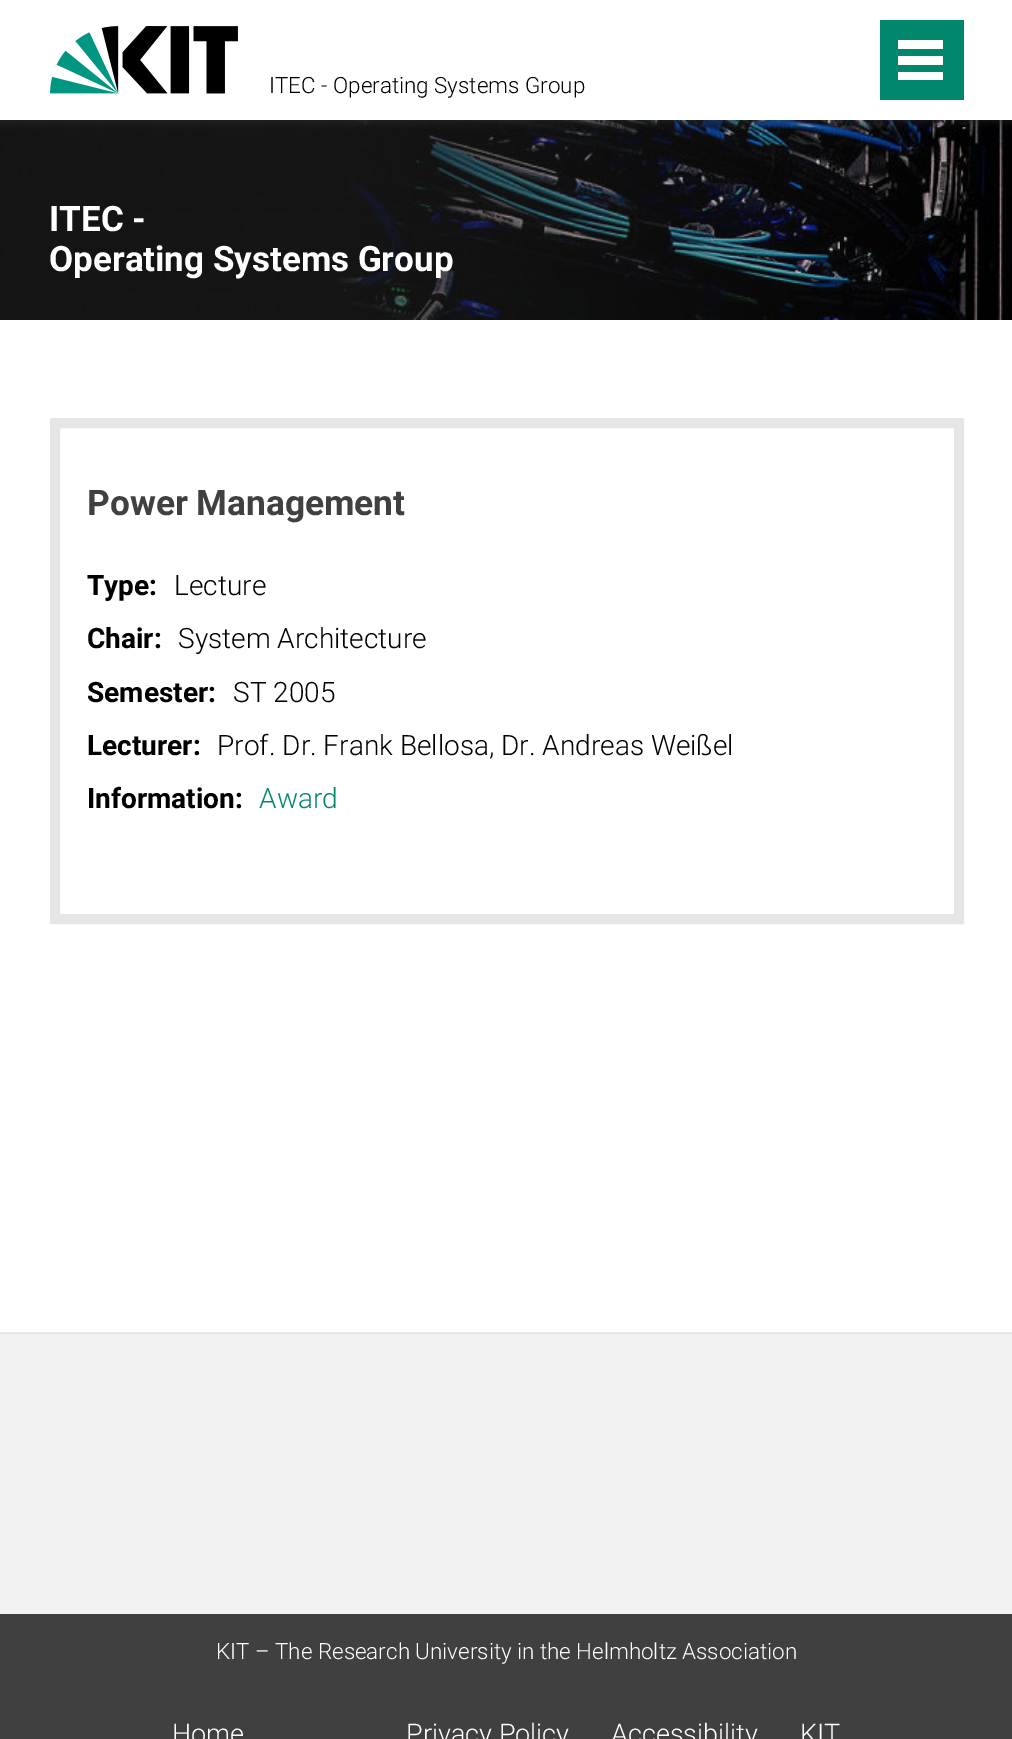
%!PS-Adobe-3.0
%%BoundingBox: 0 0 1012 1739
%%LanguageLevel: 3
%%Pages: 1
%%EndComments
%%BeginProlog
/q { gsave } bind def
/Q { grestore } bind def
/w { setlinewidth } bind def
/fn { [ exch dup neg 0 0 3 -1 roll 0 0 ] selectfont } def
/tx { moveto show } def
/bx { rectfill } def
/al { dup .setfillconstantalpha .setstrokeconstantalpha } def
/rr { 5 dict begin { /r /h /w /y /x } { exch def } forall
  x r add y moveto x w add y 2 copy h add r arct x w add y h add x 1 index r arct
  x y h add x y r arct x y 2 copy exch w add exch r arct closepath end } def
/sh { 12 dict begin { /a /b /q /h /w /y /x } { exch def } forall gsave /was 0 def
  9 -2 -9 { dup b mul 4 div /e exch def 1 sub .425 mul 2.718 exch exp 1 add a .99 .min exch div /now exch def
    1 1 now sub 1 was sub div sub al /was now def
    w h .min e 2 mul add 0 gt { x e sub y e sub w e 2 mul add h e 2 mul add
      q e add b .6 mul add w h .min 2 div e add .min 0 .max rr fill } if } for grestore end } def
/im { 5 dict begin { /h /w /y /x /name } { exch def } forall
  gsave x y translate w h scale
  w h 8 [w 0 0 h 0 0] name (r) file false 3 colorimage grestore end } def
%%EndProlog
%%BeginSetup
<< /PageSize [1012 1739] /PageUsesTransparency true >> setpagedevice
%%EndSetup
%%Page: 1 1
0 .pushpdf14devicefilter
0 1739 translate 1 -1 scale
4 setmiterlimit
1 setgray
0 0 1012 1739 bx
(image1.raw) 0 120 1012 200 im
q
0 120 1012 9 rectclip
0.251 setgray
0 0 1012 120 0 5 0.5 sh
Q
(image0.raw) 50 26 188 68 im
/Roboto-Light 22.4 fn
0 setgray
(ITEC - Operating Systems Group) 269 93 tx
0 0.529 0.424 setrgbcolor
880 20 84 80 bx
1 setgray
898 72 45 8 bx
898 56 45 9 bx
898 40 45 9 bx
/Roboto-Bold 35 fn
(ITEC -) 49 231 tx
(Operating Systems Group) 49 271 tx
0.902 setgray
10 w
55 423 904 496 rectstroke
/Roboto-Bold 35.25 fn
0.251 setgray
(Power Management) 87 515 tx
/Roboto-Bold 28 fn
0 setgray
(Type:) 87 595 tx
/Roboto-Light 28 fn
(Lecture) 174 595 tx
/Roboto-Bold 28 fn
(Chair:) 87 648 tx
/Roboto-Light 28 fn
(System Architecture) 178 648 tx
/Roboto-Bold 28 fn
(Semester:) 87 702 tx
/Roboto-Light 28 fn
(ST 2005) 233 702 tx
/Roboto-Bold 28 fn
(Lecturer:) 87 755 tx
/Roboto-Light 28 fn
(Prof. Dr. Frank Bellosa, Dr. Andreas Weißel) 217 755 tx
/Roboto-Bold 28 fn
(Information:) 87 808 tx
/Roboto-Light 28 fn
0 0.529 0.424 setrgbcolor
(Award) 259 808 tx
0.949 setgray
0 1334 1012 280 bx
0.902 setgray
0 1332 1012 2 bx
0.251 setgray
0 1614 1012 125 bx
/Roboto-Light 22.4 fn
1 setgray
(KIT – The Research University in the Helmholtz Association) 216 1659 tx
/Roboto-Light 27 fn
(Home) 172 1743 tx
(Privacy Policy) 406 1743 tx
(Accessibility) 611 1743 tx
(KIT) 800 1743 tx
.poppdf14devicefilter showpage
%%EOF
